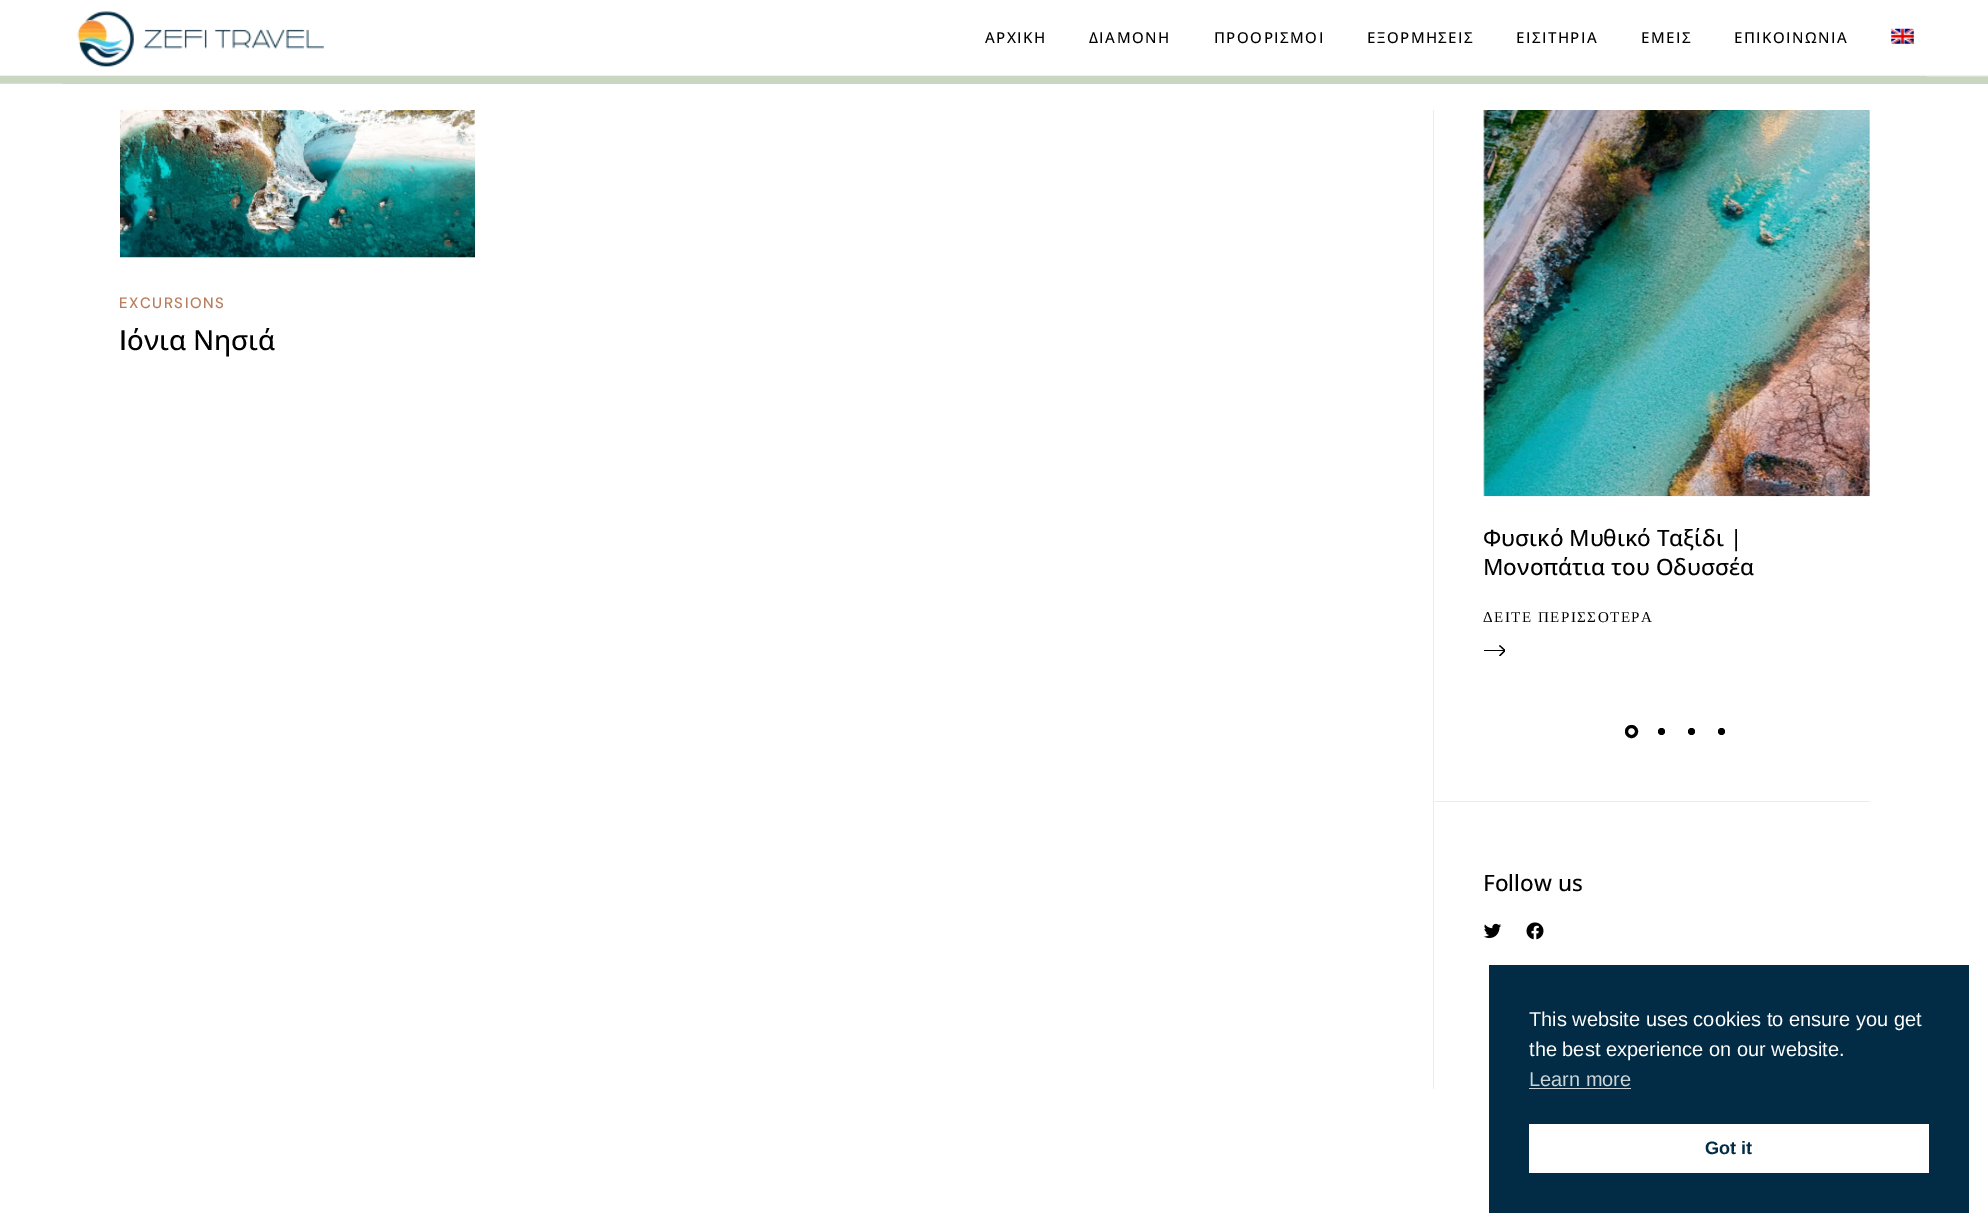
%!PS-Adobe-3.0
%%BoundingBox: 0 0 1988 1232
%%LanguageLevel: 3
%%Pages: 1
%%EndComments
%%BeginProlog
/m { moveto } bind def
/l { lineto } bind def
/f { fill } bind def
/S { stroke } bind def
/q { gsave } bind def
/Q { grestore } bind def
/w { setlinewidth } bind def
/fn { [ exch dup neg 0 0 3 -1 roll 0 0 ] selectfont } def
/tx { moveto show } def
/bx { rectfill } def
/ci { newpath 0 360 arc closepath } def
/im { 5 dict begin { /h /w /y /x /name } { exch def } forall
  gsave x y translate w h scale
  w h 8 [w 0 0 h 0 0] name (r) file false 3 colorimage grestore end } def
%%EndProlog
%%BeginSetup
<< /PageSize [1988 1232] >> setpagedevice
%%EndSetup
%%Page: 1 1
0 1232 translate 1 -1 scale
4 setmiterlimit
1 setgray
0 0 1988 1232 bx
0.953 0.945 0.937 setrgbcolor
0 75 1988 1 bx
(image0.raw) 77 11 247 56 im
/OpenSans-Medium 15 fn
0 setgray
985 43 m 1.5 0 (ΑΡΧΙΚΗ) ashow
1089 43 m 1.5 0 (ΔΙΑΜΟΝΗ) ashow
1214 43 m 1.5 0 (ΠΡΟΟΡΙΣΜΟΙ) ashow
1367 43 m 1.5 0 (ΕΞΟΡΜΗΣΕΙΣ) ashow
1516 43 m 1.5 0 (ΕΙΣΙΤΗΡΙΑ) ashow
1641 43 m 1.5 0 (ΕΜΕΙΣ) ashow
1734 43 m 1.5 0 (ΕΠΙΚΟΙΝΩΝΙΑ) ashow
(image1.raw) 1891 28 23 16 im
q
0 76 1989 8 rectclip
0.788 0.839 0.757 setrgbcolor
15 w
0 76 m 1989 84 l S
Q
(image2.raw) 120 110 355 148 im
/DMSans-Medium 15 fn
0.729 0.49 0.361 setrgbcolor
119 308 m 1.5 0 (EXCURSIONS) ashow
/OpenSans-Medium 27.5 fn
0 setgray
(Ιόνια Νησιά) 119 350 tx
0.937 0.925 0.886 setrgbcolor
1433 110 1 979 bx
1434 801 436 1 bx
(image3.raw) 1483 110 387 387 im
/OpenSans-Medium 22.5 fn
0 setgray
(Φυσικό Μυθικό Ταξίδι |) 1483 546 tx
(Μονοπάτια του Οδυσσέα) 1483 575 tx
/LiberationSerif-Regular 15 fn
1483 622 m 1.5 0 (ΔΕΙΤΕ ΠΕΡΙΣΣΟΤΕΡΑ) ashow
q
1484 645 21 11 rectclip
1.2 w
1499.5 656 m 1505 650.5 l 1499.5 645.5 l S
Q
1484 650 21 1 bx
3 w
1631.5 731.5 5 ci S
1661.5 731.5 3.5 ci f
1691.5 731.5 3.5 ci f
1721.5 731.5 3.5 ci f
/OpenSans-Medium 22.5 fn
(Follow us) 1483 891 tx
(image4.raw) 1484 923 18 16 im
(image5.raw) 1526 922 18 18 im
0.008 0.173 0.271 setrgbcolor
1489 965 480 248 bx
/LiberationSans-Regular 20 fn
1 setgray
(This website uses cookies to ensure you get) 1529 1026 tx
(the best experience on our website.) 1529 1056 tx
0.8 0.835 0.855 setrgbcolor
(Learn more) 1529 1086 tx
1529 1088 102 1 bx
1 setgray
1529 1124 400 49 bx
/LiberationSans-Bold 18 fn
0.008 0.173 0.271 setrgbcolor
(Got it) 1705 1154 tx
showpage
%%EOF
